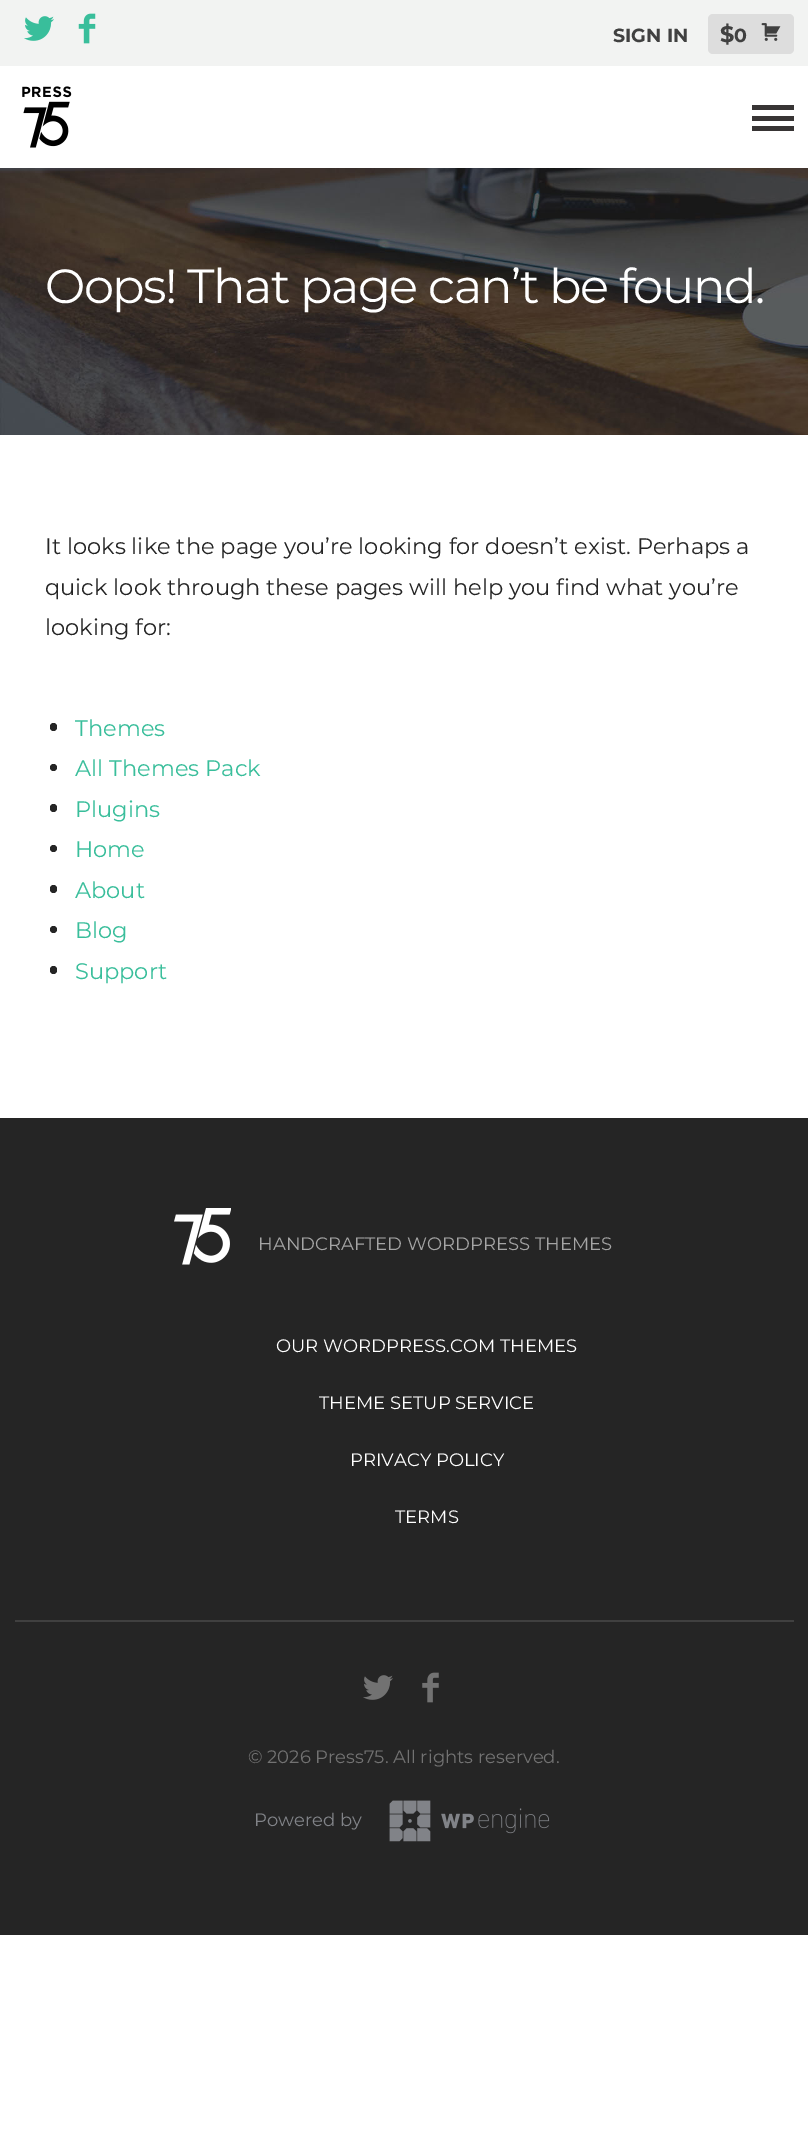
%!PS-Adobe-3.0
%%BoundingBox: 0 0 808 2138
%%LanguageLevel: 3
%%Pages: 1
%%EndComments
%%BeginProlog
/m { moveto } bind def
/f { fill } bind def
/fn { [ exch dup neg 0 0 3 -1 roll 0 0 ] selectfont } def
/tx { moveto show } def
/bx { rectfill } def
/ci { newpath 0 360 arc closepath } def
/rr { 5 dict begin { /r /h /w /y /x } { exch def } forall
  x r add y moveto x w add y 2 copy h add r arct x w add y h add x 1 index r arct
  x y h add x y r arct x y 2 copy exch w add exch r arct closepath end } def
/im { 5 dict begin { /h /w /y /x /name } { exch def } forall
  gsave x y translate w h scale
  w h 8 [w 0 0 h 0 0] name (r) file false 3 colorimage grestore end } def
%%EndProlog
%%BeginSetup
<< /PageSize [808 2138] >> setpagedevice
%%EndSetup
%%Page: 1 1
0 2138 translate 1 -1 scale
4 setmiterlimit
1 setgray
0 0 808 2138 bx
0.949 0.953 0.949 setrgbcolor
0 0 808 66 bx
(image0.raw) 24 16 30 25 im
(image1.raw) 78 13 18 31 im
/Montserrat-Bold 19 fn
0.251 setgray
(SIGN IN) 613 42 tx
0.867 setgray
708 14 86 40 5 rr f
/Montserrat-Bold 22.5 fn
0.251 setgray
($) 720 42 tx
/Montserrat-Bold 19 fn
(0) 734 42 tx
(image2.raw) 761 23 20 18 im
(image3.raw) 22 86 50 62 im
0.22 0.208 0.208 setrgbcolor
752 116 42 5 bx
752 105 42 5 bx
752 126 42 5 bx
(image4.raw) 0 168 808 267 im
/Montserrat-Regular 48 fn
1 setgray
45 303 m -1.5 0 (Oops! That page can’t be found.) ashow
/Montserrat-Regular 22.5 fn
0.145 setgray
(It looks like the page you’re looking for doesn’t exist. Perhaps a) 45 554 tx
(quick look through these pages will help you find what you’re) 45 595 tx
(looking for:) 45 635 tx
50 723 7 8 3.5 rr f
0.224 0.745 0.608 setrgbcolor
(Themes) 75 736 tx
0.145 setgray
53.5 767.5 3.5 ci f
0.224 0.745 0.608 setrgbcolor
(All Themes Pack) 75 776 tx
0.145 setgray
50 804 7 8 3.5 rr f
0.224 0.745 0.608 setrgbcolor
(Plugins) 75 817 tx
0.145 setgray
53.5 848.5 3.5 ci f
0.224 0.745 0.608 setrgbcolor
(Home) 75 857 tx
0.145 setgray
50 885 7 8 3.5 rr f
0.224 0.745 0.608 setrgbcolor
(About) 75 898 tx
0.145 setgray
53.5 929.5 3.5 ci f
0.224 0.745 0.608 setrgbcolor
(Blog) 75 938 tx
0.145 setgray
50 966 7 8 3.5 rr f
0.224 0.745 0.608 setrgbcolor
(Support) 75 979 tx
0.145 setgray
0 1118 808 817 bx
(image5.raw) 174 1208 57 57 im
/Montserrat-Regular 18 fn
0.647 setgray
(HANDCRAFTED WORDPRESS THEMES) 258 1250 tx
1 setgray
(OUR WORDPRESS.COM THEMES) 276 1352 tx
(THEME SETUP SERVICE) 319 1409 tx
(PRIVACY POLICY) 350 1466 tx
(TERMS) 395 1523 tx
0.251 setgray
15 1620 779 2 bx
(image6.raw) 363 1675 30 25 im
(image7.raw) 422 1672 17 31 im
0.447 setgray
(© 2026 Press75. All rights reserved.) 248 1763 tx
0.506 0.514 0.533 setrgbcolor
(Powered by) 254 1826 tx
(image8.raw) 389 1800 161 42 im
showpage
%%EOF
